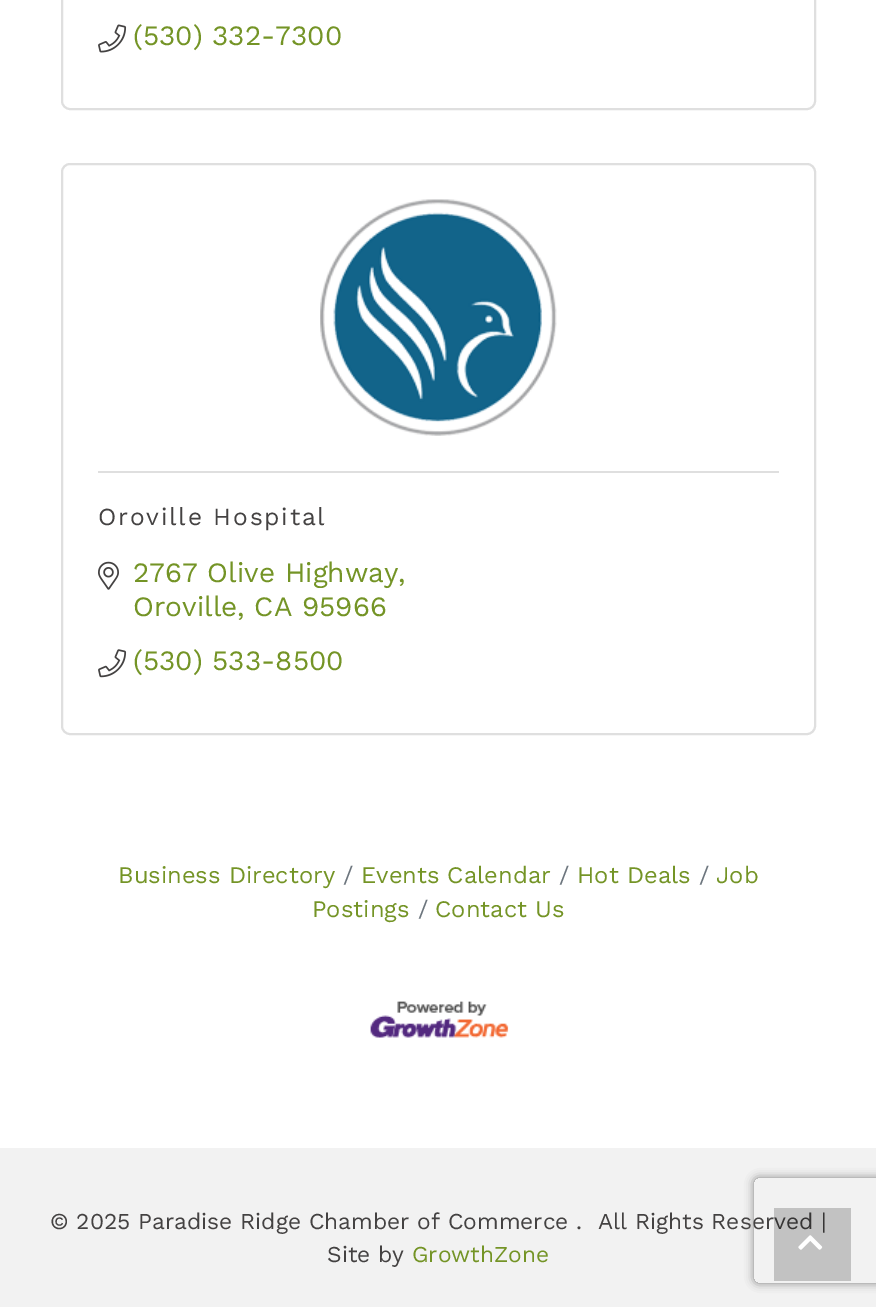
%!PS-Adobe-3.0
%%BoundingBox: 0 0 876 1307
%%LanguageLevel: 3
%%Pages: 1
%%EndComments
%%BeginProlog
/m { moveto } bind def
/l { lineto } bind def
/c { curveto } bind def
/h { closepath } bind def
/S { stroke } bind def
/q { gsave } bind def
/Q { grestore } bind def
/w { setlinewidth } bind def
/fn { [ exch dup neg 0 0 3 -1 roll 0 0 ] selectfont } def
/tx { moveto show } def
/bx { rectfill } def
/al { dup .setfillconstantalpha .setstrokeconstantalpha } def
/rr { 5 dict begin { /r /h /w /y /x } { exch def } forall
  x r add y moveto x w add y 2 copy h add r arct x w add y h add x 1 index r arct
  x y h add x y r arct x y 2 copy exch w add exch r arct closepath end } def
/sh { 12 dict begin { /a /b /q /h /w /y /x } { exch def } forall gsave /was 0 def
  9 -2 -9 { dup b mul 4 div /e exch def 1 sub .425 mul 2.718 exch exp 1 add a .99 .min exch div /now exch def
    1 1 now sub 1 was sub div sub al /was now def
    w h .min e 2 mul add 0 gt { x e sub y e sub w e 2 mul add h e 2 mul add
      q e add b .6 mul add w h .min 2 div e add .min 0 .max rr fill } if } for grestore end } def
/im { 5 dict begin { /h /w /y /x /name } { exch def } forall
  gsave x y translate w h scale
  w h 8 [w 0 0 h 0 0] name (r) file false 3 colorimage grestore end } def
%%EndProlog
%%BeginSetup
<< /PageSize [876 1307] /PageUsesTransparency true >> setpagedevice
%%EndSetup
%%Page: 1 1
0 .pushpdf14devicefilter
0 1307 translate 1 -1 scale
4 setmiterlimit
1 setgray
0 0 876 1307 bx
0.875 setgray
2 w
62 -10 753 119 8 rr S
(image0.raw) 98 24 29 29 im
/WorkSans-Regular 28 fn
0.455 0.58 0.149 setrgbcolor
(\(530\) 332-7300) 133 45 tx
0.875 setgray
62 164 753 570 8 rr S
(image1.raw) 320 199 237 237 im
98 471 681 2 bx
/WorkSans-Regular 24.5 fn
0.267 0.259 0.259 setrgbcolor
98 525 m 1.75 0 (Oroville Hospital) ashow
(image2.raw) 98 561 21 29 im
/WorkSans-Regular 28 fn
0.455 0.58 0.149 setrgbcolor
(2767 Olive Highway,) 133 582 tx
(Oroville, CA 95966) 133 616 tx
(image3.raw) 98 649 29 29 im
(\(530\) 533-8500) 133 670 tx
/WorkSans-Regular 23.75 fn
(Business Directory) 118 883 tx
0.424 0.459 0.49 setrgbcolor
(/) 699 883 tx
0.455 0.58 0.149 setrgbcolor
(Job) 716 883 tx
(Postings) 312 917 tx
0.424 0.459 0.49 setrgbcolor
(/) 343 883 tx
0.455 0.58 0.149 setrgbcolor
(Events Calendar) 361 883 tx
0.424 0.459 0.49 setrgbcolor
(/) 559 883 tx
0.455 0.58 0.149 setrgbcolor
(Hot Deals) 577 883 tx
0.424 0.459 0.49 setrgbcolor
(/) 418 917 tx
0.455 0.58 0.149 setrgbcolor
(Contact Us) 435 917 tx
(image4.raw) 370 1001 139 37 im
0.949 setgray
0 1148 876 159 bx
/WorkSans-Regular 22.75 fn
0.267 0.259 0.259 setrgbcolor
(© 2025 Paradise Ridge Chamber of Commerce .) 50 1229 tx
(All Rights Reserved |) 598 1229 tx
(Site by) 327 1262 tx
0.455 0.58 0.149 setrgbcolor
(GrowthZone) 412 1262 tx
q
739 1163 m 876 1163 l 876 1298 l 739 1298 l h 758 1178 m 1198 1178 l 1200 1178 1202 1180 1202 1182 c 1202 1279 l 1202 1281 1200 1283 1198 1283 c 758 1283 l 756 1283 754 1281 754 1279 c 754 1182 l 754 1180 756 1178 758 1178 c h eoclip newpath
0.502 setgray
754 1178 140 105 4 4.5 1 sh
Q
0.2 al
0 setgray
774 1208 77 73 bx
1 al
(image5.raw) 798 1235 25 15 im
.poppdf14devicefilter showpage
%%EOF
